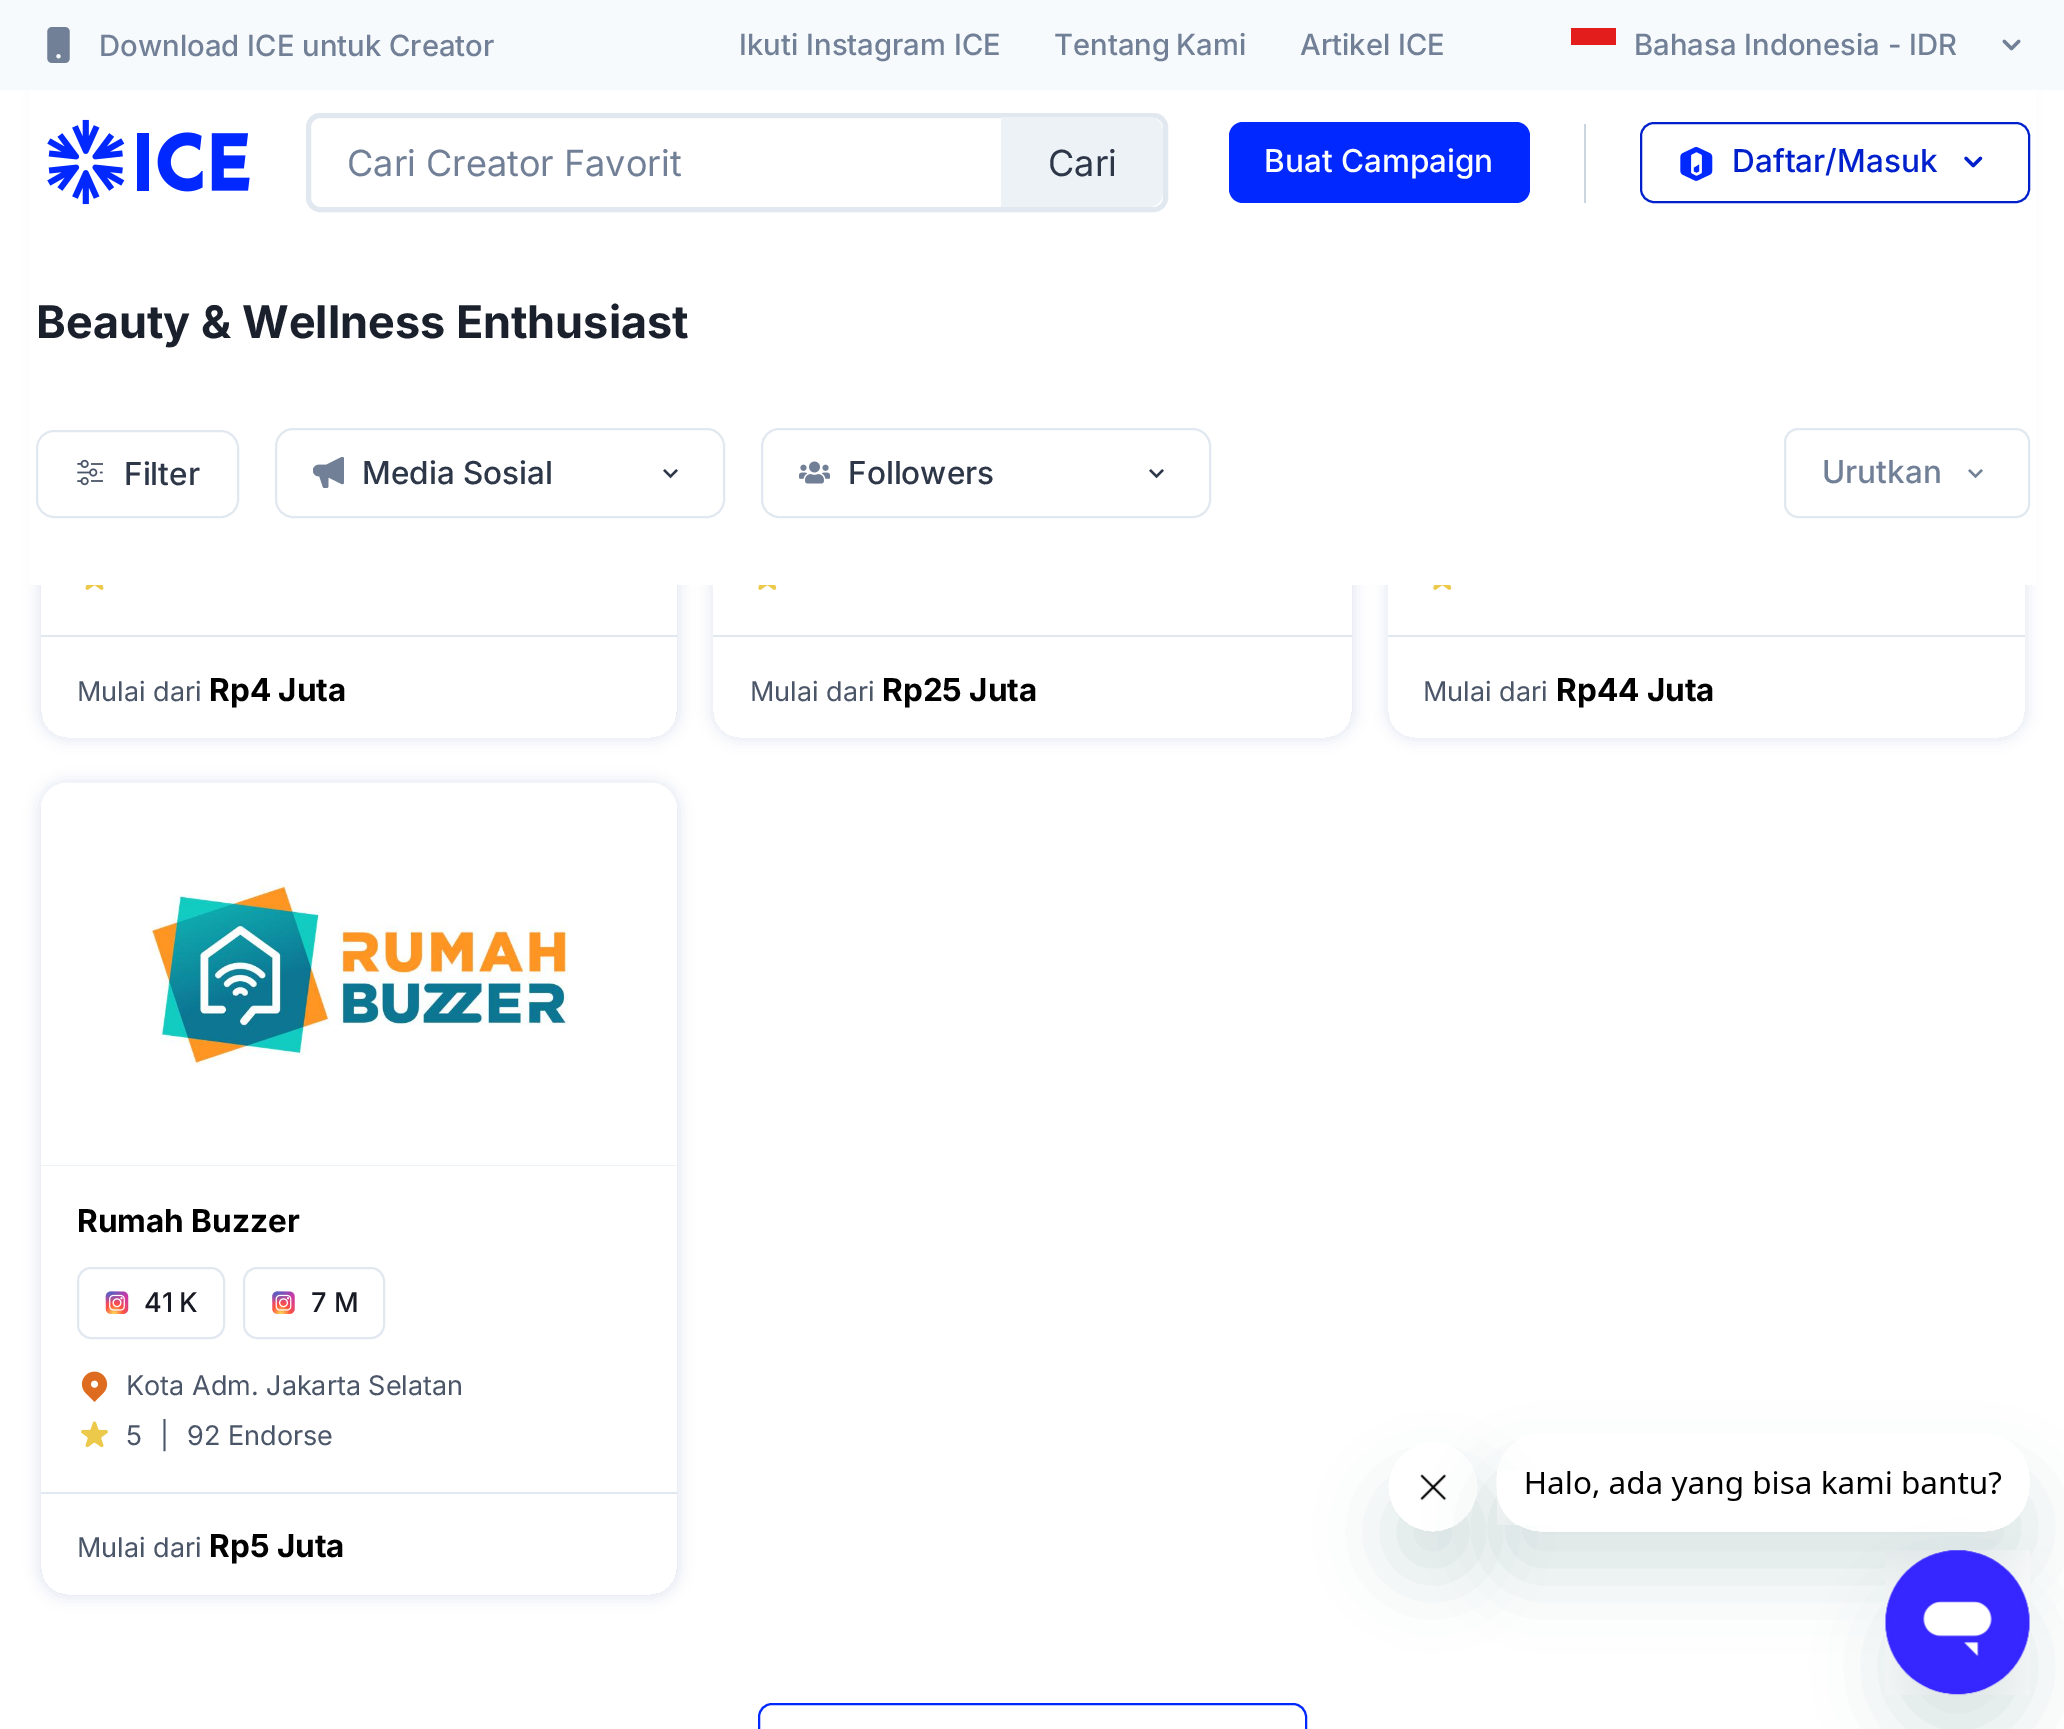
%!PS-Adobe-3.0
%%BoundingBox: 0 0 2064 1729
%%LanguageLevel: 3
%%Pages: 1
%%EndComments
%%BeginProlog
/m { moveto } bind def
/l { lineto } bind def
/c { curveto } bind def
/h { closepath } bind def
/f { fill } bind def
/S { stroke } bind def
/q { gsave } bind def
/Q { grestore } bind def
/w { setlinewidth } bind def
/fn { [ exch dup neg 0 0 3 -1 roll 0 0 ] selectfont } def
/tx { moveto show } def
/bx { rectfill } def
/al { dup .setfillconstantalpha .setstrokeconstantalpha } def
/rr { 5 dict begin { /r /h /w /y /x } { exch def } forall
  x r add y moveto x w add y 2 copy h add r arct x w add y h add x 1 index r arct
  x y h add x y r arct x y 2 copy exch w add exch r arct closepath end } def
/sh { 12 dict begin { /a /b /q /h /w /y /x } { exch def } forall gsave /was 0 def
  9 -2 -9 { dup b mul 4 div /e exch def 1 sub .425 mul 2.718 exch exp 1 add a .99 .min exch div /now exch def
    1 1 now sub 1 was sub div sub al /was now def
    w h .min e 2 mul add 0 gt { x e sub y e sub w e 2 mul add h e 2 mul add
      q e add b .6 mul add w h .min 2 div e add .min 0 .max rr fill } if } for grestore end } def
/im { 5 dict begin { /h /w /y /x /name } { exch def } forall
  gsave x y translate w h scale
  w h 8 [w 0 0 h 0 0] name (r) file false 3 colorimage grestore end } def
%%EndProlog
%%BeginSetup
<< /PageSize [2064 1729] /PageUsesTransparency true >> setpagedevice
%%EndSetup
%%Page: 1 1
0 .pushpdf14devicefilter
0 1729 translate 1 -1 scale
4 setmiterlimit
1 setgray
0 0 2064 1729 bx
q
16 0 m 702 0 l 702 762 l 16 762 l h 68 -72 m 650 -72 l 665 -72 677 -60 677 -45 c 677 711 l 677 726 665 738 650 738 c 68 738 l 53 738 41 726 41 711 c 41 -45 l 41 -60 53 -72 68 -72 c h eoclip newpath
0.886 0.91 0.941 setrgbcolor
38 -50 642 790 29 7 1 sh
Q
q
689 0 m 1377 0 l 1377 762 l 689 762 l h 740 -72 m 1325 -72 l 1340 -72 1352 -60 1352 -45 c 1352 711 l 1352 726 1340 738 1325 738 c 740 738 l 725 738 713 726 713 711 c 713 -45 l 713 -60 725 -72 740 -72 c h eoclip newpath
0.886 0.91 0.941 setrgbcolor
711 -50 644 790 29 7 1 sh
Q
q
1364 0 m 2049 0 l 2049 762 l 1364 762 l h 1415 -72 m 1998 -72 l 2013 -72 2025 -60 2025 -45 c 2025 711 l 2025 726 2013 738 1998 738 c 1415 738 l 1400 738 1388 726 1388 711 c 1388 -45 l 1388 -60 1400 -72 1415 -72 c h eoclip newpath
0.886 0.91 0.941 setrgbcolor
1386 -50 641 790 29 7 1 sh
Q
0.969 0.98 0.988 setrgbcolor
0 0 2064 90 bx
(image0.raw) 47 27 23 36 im
/Inter-Medium 29.25 fn
0.443 0.502 0.588 setrgbcolor
(Download ICE untuk Creator) 99 56 tx
(Ikuti Instagram ICE) 739 55 tx
1054 55 m -2 0 32 (Tentang Kami) widthshow
(Artikel ICE) 1300 55 tx
0.89 0.114 0.11 setrgbcolor
1571 28 45 17 bx
0.443 0.502 0.588 setrgbcolor
(Bahasa Indonesia - IDR) 1634 55 tx
(image1.raw) 2002 39 19 12 im
1 setgray
29 90 2007 495 bx
(image2.raw) 47 119 203 86 im
0.886 0.91 0.941 setrgbcolor
5 w
308.5 115.5 857 94 11.5 rr S
/Inter-Regular 36 fn
0.443 0.502 0.588 setrgbcolor
(Cari Creator Favorit) 347 176 tx
0.929 0.949 0.969 setrgbcolor
1001 117 m 1149 117 l 1156.5 117 1163 123.5 1163 131 c 1163 193 l 1163 200.5 1156.5 207 1149 207 c 1001 207 l h f
0.176 0.216 0.282 setrgbcolor
(Cari) 1048 176 tx
0 0.157 1 setrgbcolor
1229 122 301 81 14 rr f
/Inter-Medium 31.5 fn
1 setgray
(Buat Campaign) 1264 172 tx
0.796 0.835 0.878 setrgbcolor
1584 124 2 79 bx
0 0.125 0.8 setrgbcolor
2 w
1641 123 388 79 13 rr S
(image3.raw) 1680 146 33 35 im
(Daftar/Masuk) 1732 172 tx
(image4.raw) 1964 156 19 12 im
/Inter-Bold 45 fn
0.102 0.125 0.173 setrgbcolor
(Beauty & Wellness Enthusiast) 36 338 tx
0.886 0.91 0.941 setrgbcolor
37 431 201 86 17 rr S
(image5.raw) 77 459 26 27 im
/Inter-Medium 31.5 fn
0.176 0.216 0.282 setrgbcolor
(Filter) 124 485 tx
0.886 0.91 0.941 setrgbcolor
276 429 448 88 17 rr S
(image6.raw) 313 457 31 31 im
0.176 0.216 0.282 setrgbcolor
(Media Sosial) 362 484 tx
(image7.raw) 663 469 15 10 im
0.886 0.91 0.941 setrgbcolor
762 429 448 88 17 rr S
(image8.raw) 799 461 31 23 im
0.176 0.216 0.282 setrgbcolor
(Followers) 848 484 tx
(image7.raw) 1149 469 15 10 im
0.886 0.91 0.941 setrgbcolor
1785 429 244 88 13 rr S
0.443 0.502 0.588 setrgbcolor
(Urutkan) 1822 483 tx
(image9.raw) 1968 469 15 10 im
(image10.raw) 85 585 19 5 im
0.886 0.91 0.941 setrgbcolor
41 635 636 2 bx
/Inter-Regular 27 fn
0.29 0.333 0.408 setrgbcolor
(Mulai dari) 77 701 tx
/Inter-Bold 31.5 fn
0 setgray
(Rp4 Juta) 209 701 tx
(image11.raw) 758 585 19 5 im
0.886 0.91 0.941 setrgbcolor
713 635 639 2 bx
/Inter-Regular 27 fn
0.29 0.333 0.408 setrgbcolor
(Mulai dari) 750 701 tx
/Inter-Bold 31.5 fn
0 setgray
(Rp25 Juta) 882 701 tx
(image11.raw) 1433 585 19 5 im
0.886 0.91 0.941 setrgbcolor
1388 635 637 2 bx
/Inter-Regular 27 fn
0.29 0.333 0.408 setrgbcolor
(Mulai dari) 1423 701 tx
/Inter-Bold 31.5 fn
0 setgray
(Rp44 Juta) 1556 701 tx
q
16 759 m 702 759 l 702 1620 l 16 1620 l h 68 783 m 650 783 l 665 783 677 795 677 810 c 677 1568 l 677 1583 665 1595 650 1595 c 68 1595 l 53 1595 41 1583 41 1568 c 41 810 l 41 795 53 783 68 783 c h eoclip newpath
0.886 0.91 0.941 setrgbcolor
38 781 642 817 29 7 1 sh
Q
0.929 0.949 0.969 setrgbcolor
68 783 m 650 783 l 665 783 677 795 677 810 c 677 1166 l 41 1166 l 41 810 l 41 795 53 783 68 783 c h f
(image12.raw) 41 782 636 383 im
0 setgray
(Rumah Buzzer) 77 1232 tx
0.886 0.91 0.941 setrgbcolor
78 1268 146 70 13 rr S
(image13.raw) 105 1291 24 23 im
/Inter-Medium 27 fn
0.09 0.098 0.137 setrgbcolor
144 1312 m -1 0 32 (41 K) widthshow
0.886 0.91 0.941 setrgbcolor
244 1268 140 70 13 rr S
(image14.raw) 272 1291 23 23 im
0.09 0.098 0.137 setrgbcolor
(7 M) 311 1312 tx
(image15.raw) 81 1371 27 31 im
/Inter-Regular 27 fn
0.29 0.333 0.408 setrgbcolor
(Kota Adm. Jakarta Selatan) 126 1395 tx
(image16.raw) 81 1421 27 27 im
(5) 126 1445 tx
(|) 160 1445 tx
(92 Endorse) 187 1445 tx
0.886 0.91 0.941 setrgbcolor
41 1492 636 2 bx
0.29 0.333 0.408 setrgbcolor
(Mulai dari) 77 1557 tx
/Inter-Bold 31.5 fn
0 setgray
(Rp5 Juta) 209 1557 tx
0 0.157 1 setrgbcolor
759 1704 547 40 13 rr S
q
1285 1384 m 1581 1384 l 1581 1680 l 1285 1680 l h 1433 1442 m 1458 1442 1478 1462 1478 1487 c 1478 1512 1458 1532 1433 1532 c 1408 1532 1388 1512 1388 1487 c 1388 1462 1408 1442 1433 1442 c h eoclip newpath
0.09 0.286 0.302 setrgbcolor
1388 1487 90 90 45 34 0.15 sh
Q
(image18.raw) 1420 1474 27 27 im
q
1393 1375 m 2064 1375 l 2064 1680 l 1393 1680 l h 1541 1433 m 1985 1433 l 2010 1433 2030 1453 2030 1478 c 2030 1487 l 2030 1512 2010 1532 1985 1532 c 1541 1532 l 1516 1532 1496 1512 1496 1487 c 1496 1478 l 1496 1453 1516 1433 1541 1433 c h eoclip newpath
0.09 0.286 0.302 setrgbcolor
1496 1478 534 99 45 34 0.15 sh
Q
(image17.raw) 1497 1471 505 54 im
0.09 0.286 0.302 setrgbcolor
1886 1595 144 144 72 34 0.15 sh
(image19.raw) 1885 1550 145 145 im
.poppdf14devicefilter showpage
%%EOF
